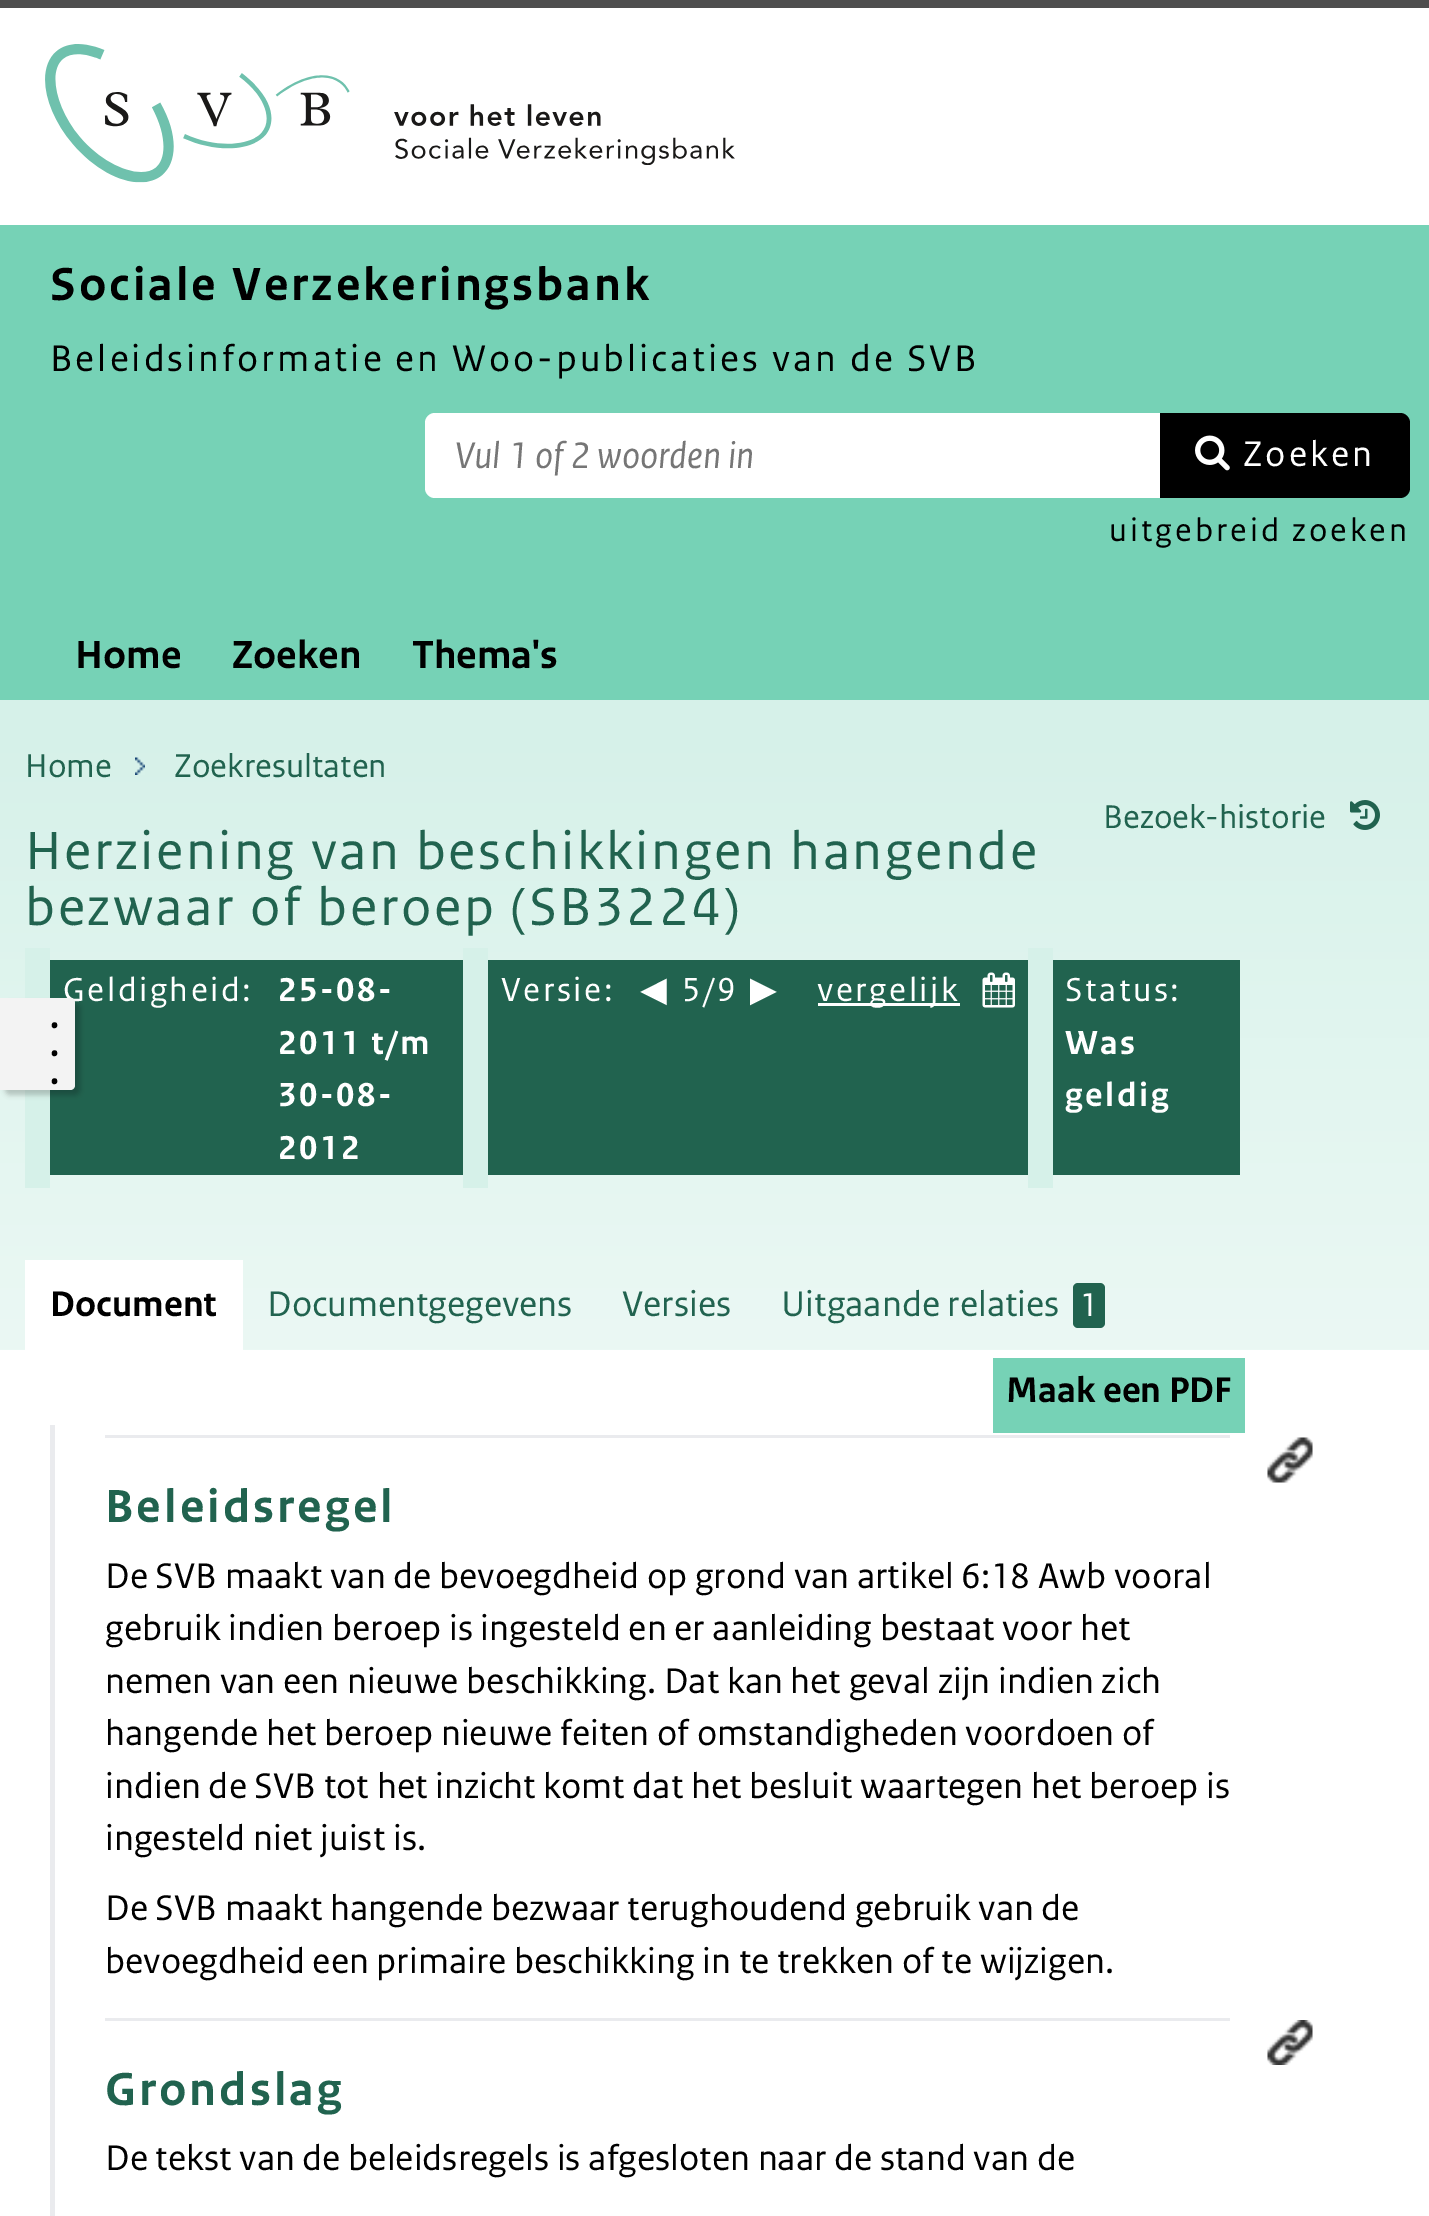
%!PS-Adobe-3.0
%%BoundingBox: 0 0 1429 2216
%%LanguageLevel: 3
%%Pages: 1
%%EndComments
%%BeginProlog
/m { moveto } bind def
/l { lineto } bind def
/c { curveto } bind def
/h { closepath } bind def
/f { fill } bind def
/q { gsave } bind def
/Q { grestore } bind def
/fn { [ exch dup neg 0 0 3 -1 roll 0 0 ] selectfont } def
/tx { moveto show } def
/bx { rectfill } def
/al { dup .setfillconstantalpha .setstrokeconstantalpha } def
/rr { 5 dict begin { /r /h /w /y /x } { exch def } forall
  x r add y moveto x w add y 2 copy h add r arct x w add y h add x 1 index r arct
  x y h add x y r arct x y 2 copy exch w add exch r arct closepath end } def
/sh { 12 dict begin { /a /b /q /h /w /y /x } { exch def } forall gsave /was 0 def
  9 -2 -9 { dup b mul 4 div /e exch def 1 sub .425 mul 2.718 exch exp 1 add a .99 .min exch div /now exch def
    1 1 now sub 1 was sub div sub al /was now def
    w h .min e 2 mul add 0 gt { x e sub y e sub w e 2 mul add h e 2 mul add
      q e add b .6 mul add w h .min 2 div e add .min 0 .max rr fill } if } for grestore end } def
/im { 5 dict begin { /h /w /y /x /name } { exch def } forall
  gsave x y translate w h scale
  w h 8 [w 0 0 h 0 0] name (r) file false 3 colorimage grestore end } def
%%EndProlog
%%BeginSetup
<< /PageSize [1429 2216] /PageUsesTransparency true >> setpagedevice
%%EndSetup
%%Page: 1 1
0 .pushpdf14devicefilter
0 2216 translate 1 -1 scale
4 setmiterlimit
0.306 setgray
0 0 1429 2216 bx
1 setgray
0 8 1429 2208 bx
(image0.raw) 45 44 690 139 im
0.463 0.824 0.714 setrgbcolor
0 225 1429 475 bx
/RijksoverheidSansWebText-Bold 48.75 fn
0 setgray
50 300 m 3 0 (Sociale Verzekeringsbank) ashow
/RijksoverheidSansWebText-Regular 39 fn
50 371 m 3 0 (Beleidsinformatie en Woo-publicaties van de SVB) ashow
1 setgray
435 413 m 1160 413 l 1160 498 l 435 498 l 429.5 498 425 493.5 425 488 c 425 423 l 425 417.5 429.5 413 435 413 c h f
/RijksoverheidSansWebText-Italic 39 fn
0.463 setgray
(Vul 1 of 2 woorden in) 455 468 tx
0 setgray
1160 413 m 1400 413 l 1405.5 413 1410 417.5 1410 423 c 1410 488 l 1410 493.5 1405.5 498 1400 498 c 1160 498 l h f
(image1.raw) 1195 435 35 36 im
/RijksoverheidSansWebText-Regular 37.5 fn
1 setgray
1243 466 m 3 0 (Zoeken) ashow
/RijksoverheidSansWebText-Regular 34.1 fn
0 setgray
1109 541 m 3 0 (uitgebreid zoeken) ashow
/RijksoverheidSansWebText-Bold 41 fn
(Home) 75 668 tx
(Zoeken) 232 668 tx
(Thema's) 412 668 tx
0.839 0.945 0.914 setrgbcolor
0 700 1429 25 bx
q 0 725 m 1429 725 l 1429 1350 l 0 1350 l h clip newpath
<< /ShadingType 2 /ColorSpace /DeviceRGB /Coords [715 725 715 1350] /Extend [true true] /Function << /FunctionType 2 /Domain [0 1] /C0 [0.839 0.945 0.914] /C1 [0.922 0.973 0.957] /N 1 >> >> shfill Q
/RijksoverheidSansWebText-Regular 34.5 fn
0.129 0.388 0.31 setrgbcolor
(Home) 25 777 tx
(image2.raw) 135 757 10 18 im
(Zoekresultaten) 174 777 tx
(Bezoek-historie) 1103 828 tx
(image3.raw) 1350 800 30 30 im
/RijksoverheidSansWebText-Regular 56.25 fn
25 869 m 2.5 0 (Herziening van beschikkingen hangende) ashow
25 925 m 2.5 0 (bezwaar of beroep \(SB3224\)) ashow
50 960 1190 215 bx
0.839 0.945 0.914 setrgbcolor
25 948 25 240 bx
/RijksoverheidSansWebText-Regular 35 fn
1 setgray
63 1001 m 2.5 0 (Geldigheid:) ashow
/RijksoverheidSansWebText-Bold 35 fn
278 1001 m 2.5 0 (25-08-) ashow
278 1054 m 2.5 0 (2011 t/m) ashow
278 1106 m 2.5 0 (30-08-) ashow
278 1159 m 2.5 0 (2012) ashow
0.839 0.945 0.914 setrgbcolor
463 948 25 240 bx
/RijksoverheidSansWebText-Regular 35 fn
1 setgray
501 1001 m 2.5 0 (Versie:) ashow
/DejaVuSans-Regular 35 fn
640 1001 m 2.5 0 (◀) ashow
/RijksoverheidSansWebText-Regular 35 fn
682 1001 m 2.5 0 (5/9) ashow
/DejaVuSans-Regular 35 fn
750 1001 m 2.5 0 (▶) ashow
818 1003 142 3 bx
/RijksoverheidSansWebText-Regular 35 fn
817 1001 m 2.5 0 (vergelijk) ashow
(image4.raw) 982 972 33 36 im
0.839 0.945 0.914 setrgbcolor
1028 948 25 240 bx
1 setgray
1065 1001 m 2.5 0 (Status:) ashow
/RijksoverheidSansWebText-Bold 35 fn
1065 1054 m 2.5 0 (Was) ashow
1065 1106 m 2.5 0 (geldig) ashow
25 1260 218 90 bx
/RijksoverheidSansWebText-Bold 37.5 fn
0 setgray
(Document) 50 1316 tx
/RijksoverheidSansWebText-Regular 37.5 fn
0.129 0.388 0.31 setrgbcolor
(Documentgegevens) 267 1316 tx
(Versies) 622 1316 tx
(Uitgaande relaties) 781 1316 tx
1073 1283 32 45 5 rr f
/RijksoverheidSansWebText-Regular 34.5 fn
1 setgray
(1) 1080 1316 tx
0 setgray
5 1003 75 92 5 2.5 0.2 sh
0.953 setgray
0 998 m 70 998 l 73 998 75 1000 75 1003 c 75 1085 l 75 1088 73 1090 70 1090 c 0 1090 l h f
/RijksoverheidSansWebText-Bold 35 fn
0 setgray
(.) 50 1028 tx
(.) 50 1056 tx
(.) 50 1084 tx
0.463 0.824 0.714 setrgbcolor
993 1358 252 75 bx
/RijksoverheidSansWebText-Bold 37.5 fn
0 setgray
(Maak een PDF) 1006 1402 tx
0.918 0.922 0.933 setrgbcolor
50 1425 5 791 bx
105 1435 1125 3 bx
(image5.raw) 1267 1437 46 46 im
/RijksoverheidSansWebText-Bold 48.75 fn
0.129 0.388 0.31 setrgbcolor
105 1522 m 3 0 (Beleidsregel) ashow
/RijksoverheidSansWebText-Regular 37.5 fn
0 setgray
(De SVB maakt van de bevoegdheid op grond van artikel 6:18 Awb vooral) 105 1588 tx
(gebruik indien beroep is ingesteld en er aanleiding bestaat voor het) 105 1640 tx
(nemen van een nieuwe beschikking. Dat kan het geval zijn indien zich) 105 1693 tx
(hangende het beroep nieuwe feiten of omstandigheden voordoen of) 105 1745 tx
(indien de SVB tot het inzicht komt dat het besluit waartegen het beroep is) 105 1798 tx
(ingesteld niet juist is.) 105 1850 tx
(De SVB maakt hangende bezwaar terughoudend gebruik van de) 105 1920 tx
(bevoegdheid een primaire beschikking in te trekken of te wijzigen.) 105 1973 tx
0.918 0.922 0.933 setrgbcolor
105 2018 1125 3 bx
(image6.raw) 1267 2020 46 45 im
/RijksoverheidSansWebText-Bold 48.75 fn
0.129 0.388 0.31 setrgbcolor
105 2105 m 3 0 (Grondslag) ashow
/RijksoverheidSansWebText-Regular 37.5 fn
0 setgray
(De tekst van de beleidsregels is afgesloten naar de stand van de) 105 2170 tx
.poppdf14devicefilter showpage
%%EOF
